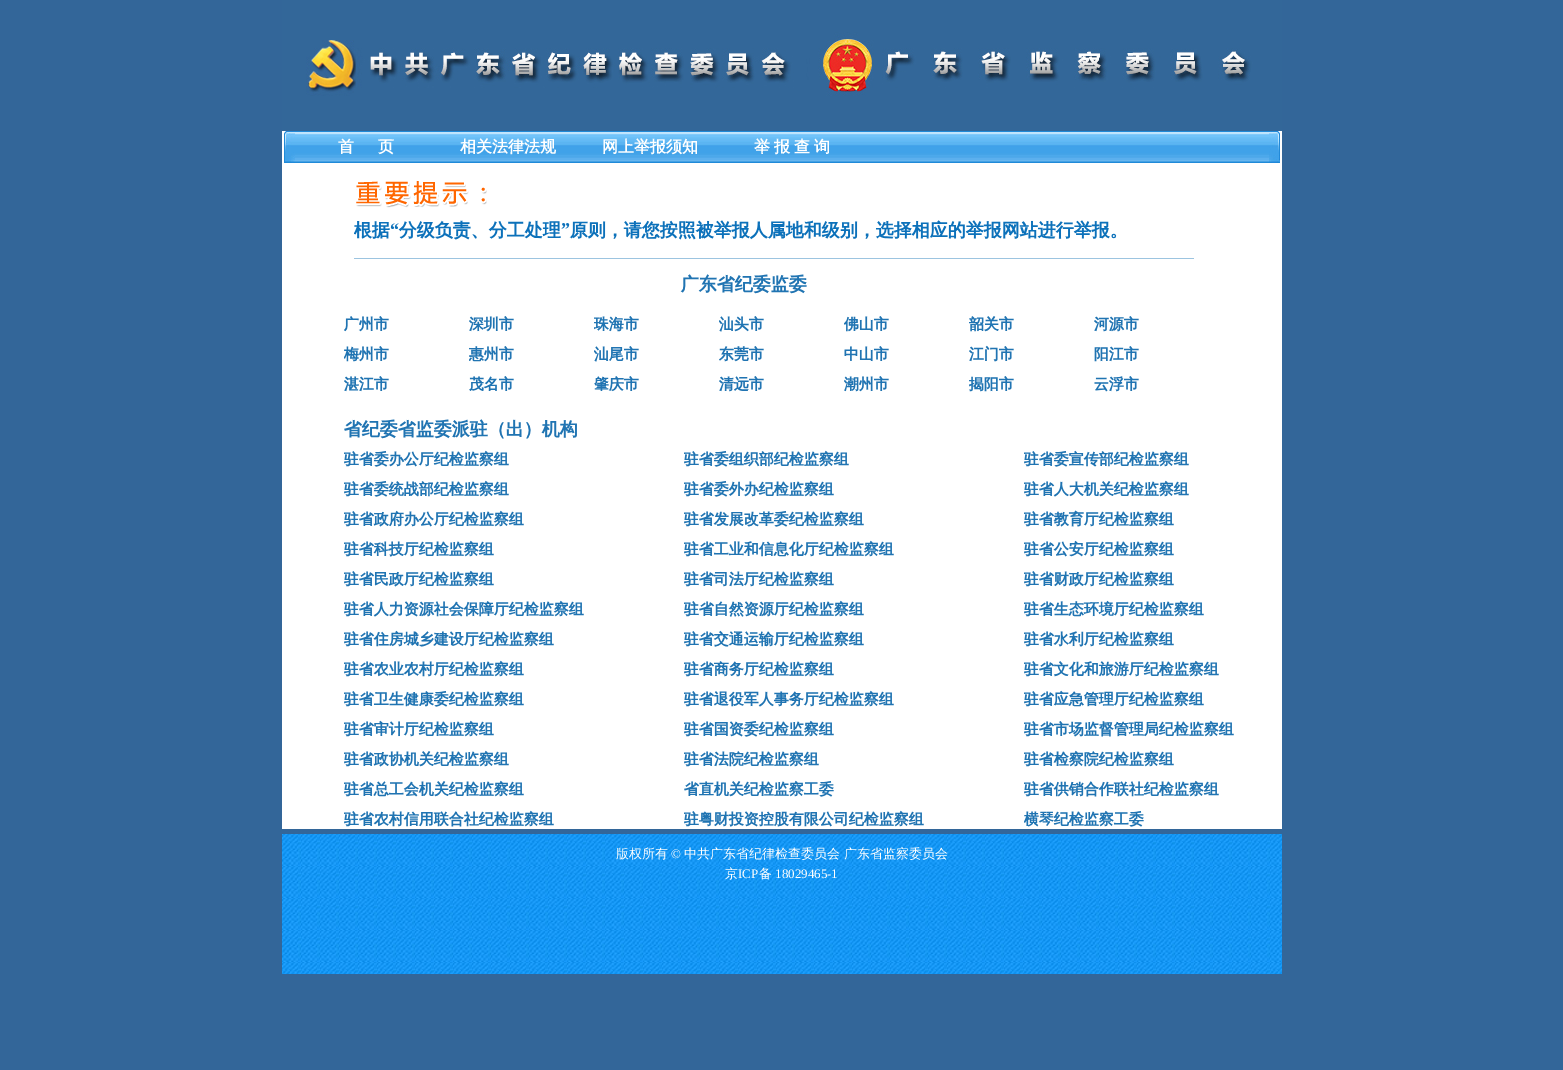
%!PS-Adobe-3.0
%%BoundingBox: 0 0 1563 1070
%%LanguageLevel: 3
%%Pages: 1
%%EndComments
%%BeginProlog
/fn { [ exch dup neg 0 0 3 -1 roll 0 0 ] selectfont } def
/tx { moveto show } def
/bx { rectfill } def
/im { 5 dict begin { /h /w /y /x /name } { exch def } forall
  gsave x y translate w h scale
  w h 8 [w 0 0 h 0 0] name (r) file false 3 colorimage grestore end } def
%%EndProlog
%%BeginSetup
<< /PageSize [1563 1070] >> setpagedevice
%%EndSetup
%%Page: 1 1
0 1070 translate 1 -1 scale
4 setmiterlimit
0.2 0.4 0.6 setrgbcolor
0 0 1563 1070 bx
1 setgray
282 131 1000 50 bx
(image0.raw) 282 0 1000 131 im
(image1.raw) 284 131 11 32 im
(image2.raw) 295 131 974 32 im
/WenQuanYiZenHei-Bold 16 fn
(首) 338 152 tx
(页) 378 152 tx
(相关法律法规) 460 152 tx
(网上举报须知) 602 152 tx
(举) 754 152 tx
(报) 774 152 tx
(查) 794 152 tx
(询) 814 152 tx
(image3.raw) 1269 131 11 32 im
(image4.raw) 282 181 1000 653 im
(image5.raw) 282 834 1000 140 im
/WenQuanYiZenHei-Medium 13 fn
(版权所有) 616 858 tx
/LiberationSerif-Regular 13 fn
(©) 671 858 tx
/WenQuanYiZenHei-Medium 13 fn
(中共广东省纪律检查委员会 广东省监察委员会) 684 858 tx
(京) 725 878 tx
/LiberationSerif-Regular 13 fn
(ICP) 738 878 tx
/WenQuanYiZenHei-Medium 13 fn
(备) 759 878 tx
/LiberationSerif-Regular 13 fn
(18029465-1) 775 878 tx
showpage
%%EOF
